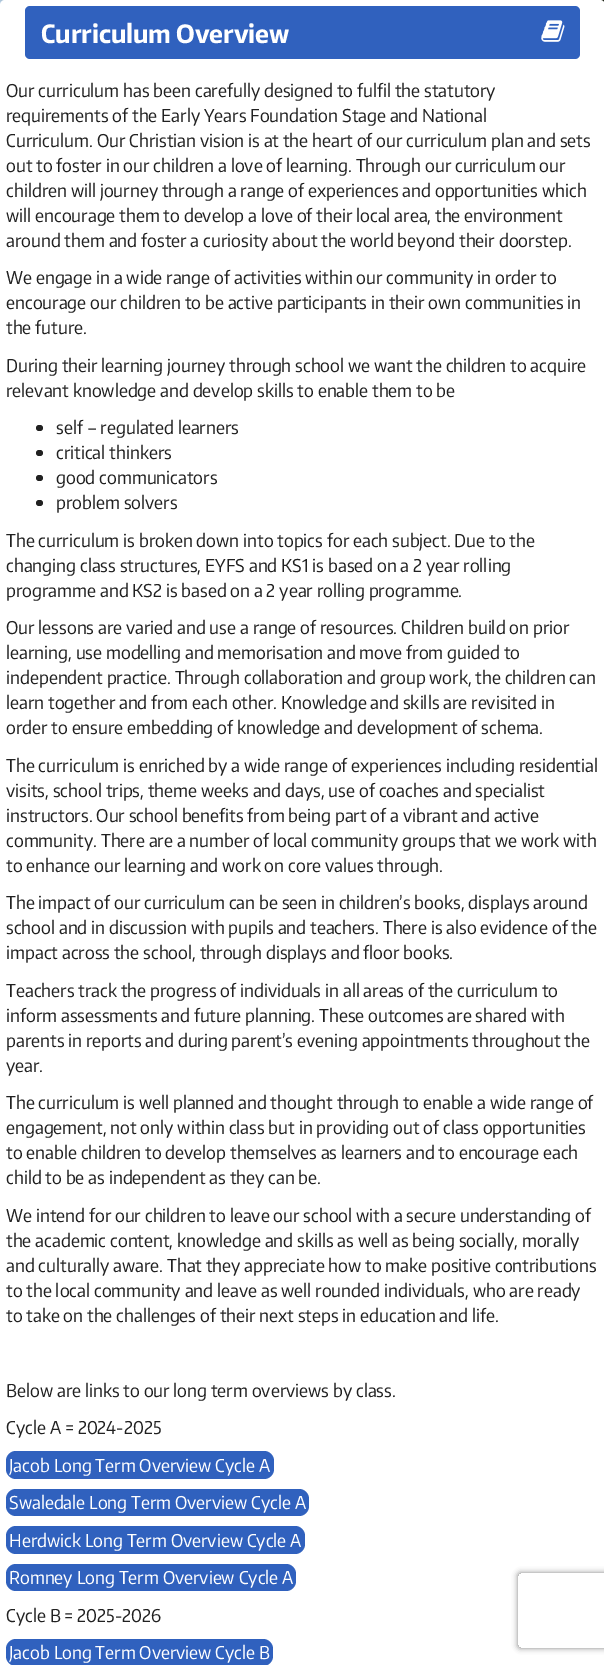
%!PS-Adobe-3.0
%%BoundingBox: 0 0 604 1665
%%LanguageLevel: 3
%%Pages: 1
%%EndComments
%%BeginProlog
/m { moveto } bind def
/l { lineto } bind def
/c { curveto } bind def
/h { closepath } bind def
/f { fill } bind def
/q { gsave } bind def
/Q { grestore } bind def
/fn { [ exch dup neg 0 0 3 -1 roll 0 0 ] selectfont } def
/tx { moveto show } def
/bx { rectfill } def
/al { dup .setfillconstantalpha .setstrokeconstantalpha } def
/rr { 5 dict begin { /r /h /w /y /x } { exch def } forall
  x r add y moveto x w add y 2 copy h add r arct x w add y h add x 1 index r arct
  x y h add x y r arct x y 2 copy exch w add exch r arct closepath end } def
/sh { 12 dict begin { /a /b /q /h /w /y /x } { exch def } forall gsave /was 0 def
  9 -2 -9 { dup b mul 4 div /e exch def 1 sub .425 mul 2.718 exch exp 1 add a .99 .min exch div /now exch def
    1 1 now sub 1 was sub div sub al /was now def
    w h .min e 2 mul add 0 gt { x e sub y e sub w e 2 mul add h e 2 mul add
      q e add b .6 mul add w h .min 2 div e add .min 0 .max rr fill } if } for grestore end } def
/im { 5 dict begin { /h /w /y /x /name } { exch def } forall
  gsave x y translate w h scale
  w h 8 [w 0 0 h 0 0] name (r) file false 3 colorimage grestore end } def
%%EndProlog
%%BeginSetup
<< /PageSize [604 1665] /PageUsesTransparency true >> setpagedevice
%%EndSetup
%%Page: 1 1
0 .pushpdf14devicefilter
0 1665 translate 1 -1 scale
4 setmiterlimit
1 setgray
0 0 604 1665 bx
(image0.raw) 0 0 604 5 im
0 0 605 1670 5 rr f
0.188 0.38 0.745 setrgbcolor
25 6 555 53 5 rr f
/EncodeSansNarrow-Bold 25 fn
1 setgray
(Curriculum Overview) 41 43 tx
(image1.raw) 541 20 24 22 im
/EncodeSansNarrow-Regular 17.5 fn
0.129 setgray
(Our curriculum has been carefully designed to fulfil the statutory) 6 97 tx
(requirements of the Early Years Foundation Stage and National) 6 122 tx
(Curriculum. Our Christian vision is at the heart of our curriculum plan and sets) 6 147 tx
(out to foster in our children a love of learning. Through our curriculum our) 6 172 tx
(children will journey through a range of experiences and opportunities which) 6 197 tx
(will encourage them to develop a love of their local area, the environment) 6 222 tx
(around them and foster a curiosity about the world beyond their doorstep.) 6 247 tx
(We engage in a wide range of activities within our community in order to) 6 284 tx
(encourage our children to be active participants in their own communities in) 6 309 tx
(the future.) 6 334 tx
(During their learning journey through school we want the children to acquire) 6 372 tx
(relevant knowledge and develop skills to enable them to be) 6 397 tx
36 425 7 6 3 rr f
(self – regulated learners) 56 434 tx
36 450 7 6 3 rr f
(critical thinkers) 56 459 tx
36 475 7 6 3 rr f
(good communicators) 56 484 tx
36 500 7 6 3 rr f
(problem solvers) 56 509 tx
(The curriculum is broken down into topics for each subject. Due to the) 6 547 tx
(changing class structures, EYFS and KS1 is based on a 2 year rolling) 6 572 tx
(programme and KS2 is based on a 2 year rolling programme.) 6 597 tx
(Our lessons are varied and use a range of resources. Children build on prior) 6 634 tx
(learning, use modelling and memorisation and move from guided to) 6 659 tx
(independent practice. Through collaboration and group work, the children can) 6 684 tx
(learn together and from each other. Knowledge and skills are revisited in) 6 709 tx
(order to ensure embedding of knowledge and development of schema.) 6 734 tx
(The curriculum is enriched by a wide range of experiences including residential) 6 772 tx
(visits, school trips, theme weeks and days, use of coaches and specialist) 6 797 tx
(instructors. Our school benefits from being part of a vibrant and active) 6 822 tx
(community. There are a number of local community groups that we work with) 6 847 tx
(to enhance our learning and work on core values through.) 6 872 tx
(The impact of our curriculum can be seen in children’s books, displays around) 6 909 tx
(school and in discussion with pupils and teachers. There is also evidence of the) 6 934 tx
(impact across the school, through displays and floor books.) 6 959 tx
(Teachers track the progress of individuals in all areas of the curriculum to) 6 997 tx
(inform assessments and future planning. These outcomes are shared with) 6 1022 tx
(parents in reports and during parent’s evening appointments throughout the) 6 1047 tx
(year.) 6 1072 tx
(The curriculum is well planned and thought through to enable a wide range of) 6 1109 tx
(engagement, not only within class but in providing out of class opportunities) 6 1134 tx
(to enable children to develop themselves as learners and to encourage each) 6 1159 tx
(child to be as independent as they can be.) 6 1184 tx
(We intend for our children to leave our school with a secure understanding of) 6 1222 tx
(the academic content, knowledge and skills as well as being socially, morally) 6 1247 tx
(and culturally aware. That they appreciate how to make positive contributions) 6 1272 tx
(to the local community and leave as well rounded individuals, who are ready) 6 1297 tx
(to take on the challenges of their next steps in education and life.) 6 1322 tx
(Below are links to our long term overviews by class.) 6 1397 tx
(Cycle A = 2024-2025) 6 1434 tx
0.188 0.38 0.745 setrgbcolor
6 1451 268 28 10 rr f
1 setgray
(Jacob Long Term Overview Cycle A) 9 1472 tx
0.188 0.38 0.745 setrgbcolor
6 1489 303 27 10 rr f
1 setgray
(Swaledale Long Term Overview Cycle A) 9 1509 tx
0.188 0.38 0.745 setrgbcolor
6 1526 299 28 10 rr f
1 setgray
(Herdwick Long Term Overview Cycle A) 9 1547 tx
0.188 0.38 0.745 setrgbcolor
6 1564 290 27 10 rr f
1 setgray
(Romney Long Term Overview Cycle A) 9 1584 tx
0.129 setgray
(Cycle B = 2025-2026) 6 1622 tx
0.188 0.38 0.745 setrgbcolor
6 1639 267 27 10 rr f
1 setgray
(Jacob Long Term Overview Cycle B) 9 1659 tx
q
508 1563 m 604 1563 l 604 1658 l 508 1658 l h 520.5 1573 m 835.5 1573 l 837 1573 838 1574 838 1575.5 c 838 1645.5 l 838 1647 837 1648 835.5 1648 c 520.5 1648 l 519 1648 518 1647 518 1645.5 c 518 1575.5 l 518 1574 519 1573 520.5 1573 c h eoclip newpath
0.502 setgray
518 1573 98 75 2.5 3 1 sh
Q
.poppdf14devicefilter showpage
%%EOF
